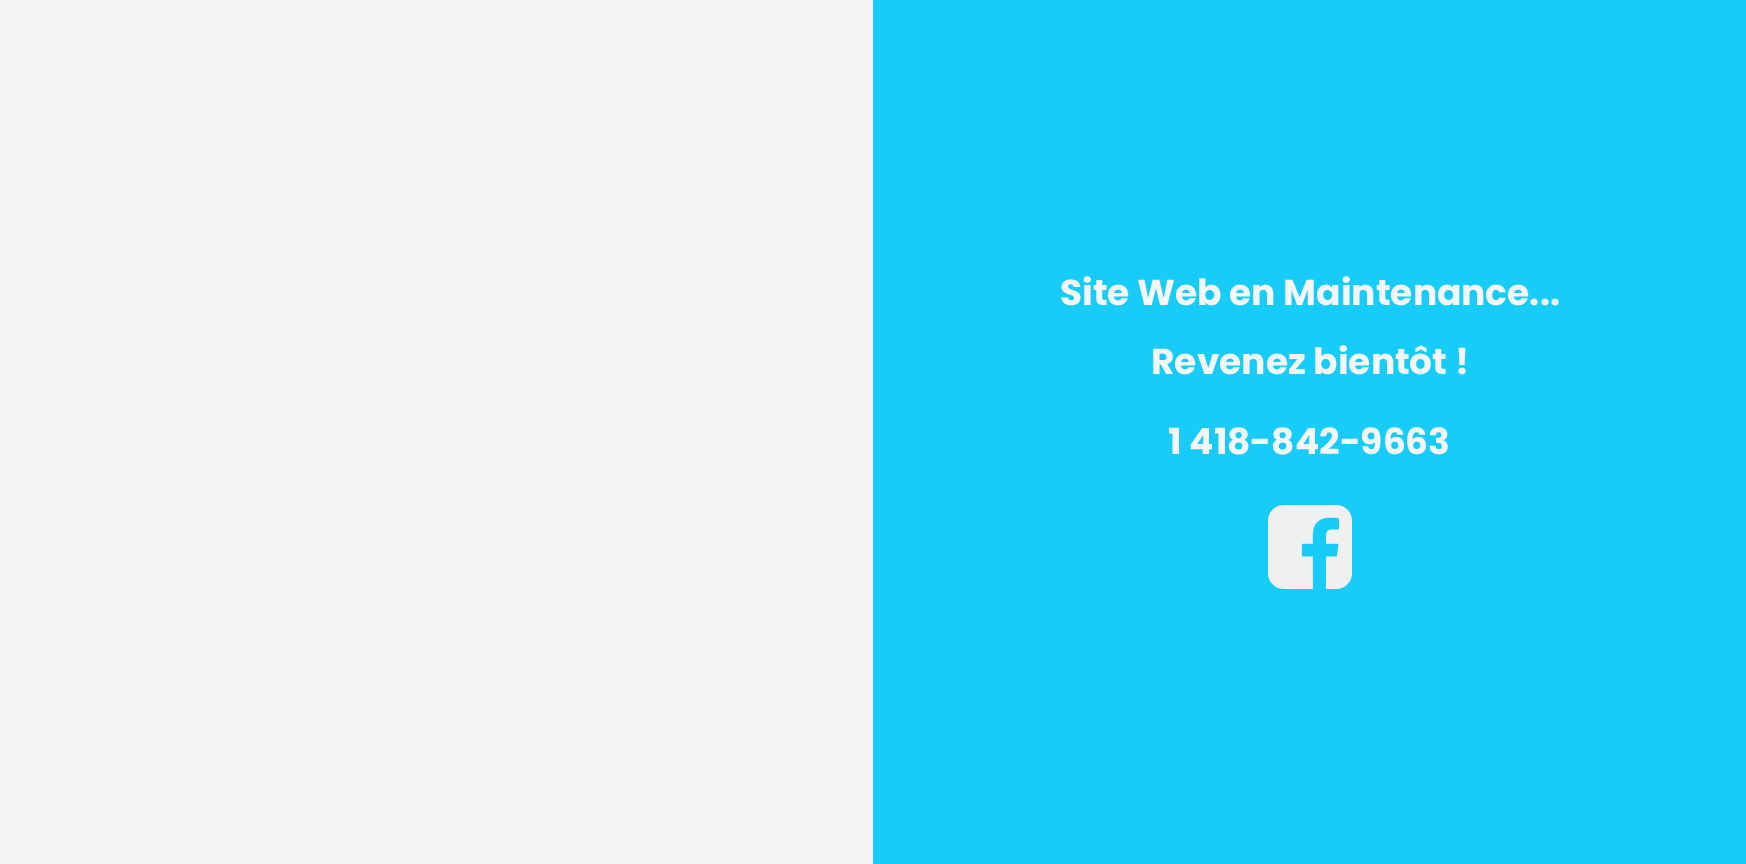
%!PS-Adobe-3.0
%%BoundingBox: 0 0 1746 864
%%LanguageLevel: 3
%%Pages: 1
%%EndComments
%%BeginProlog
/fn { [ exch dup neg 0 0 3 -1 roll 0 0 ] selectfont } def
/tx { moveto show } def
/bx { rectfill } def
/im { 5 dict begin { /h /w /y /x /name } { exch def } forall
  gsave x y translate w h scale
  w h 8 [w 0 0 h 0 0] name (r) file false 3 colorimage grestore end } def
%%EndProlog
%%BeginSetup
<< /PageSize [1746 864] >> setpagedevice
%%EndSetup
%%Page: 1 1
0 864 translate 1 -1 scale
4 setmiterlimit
0.953 setgray
0 0 1746 864 bx
0.09 0.8 0.973 setrgbcolor
873 0 873 864 bx
/Poppins-Bold 36 fn
0.965 setgray
(Site Web en Maintenance...) 1060 305 tx
(Revenez bientôt !) 1151 374 tx
(1 418-842-9663) 1168 454 tx
(image0.raw) 1268 505 84 84 im
showpage
%%EOF
